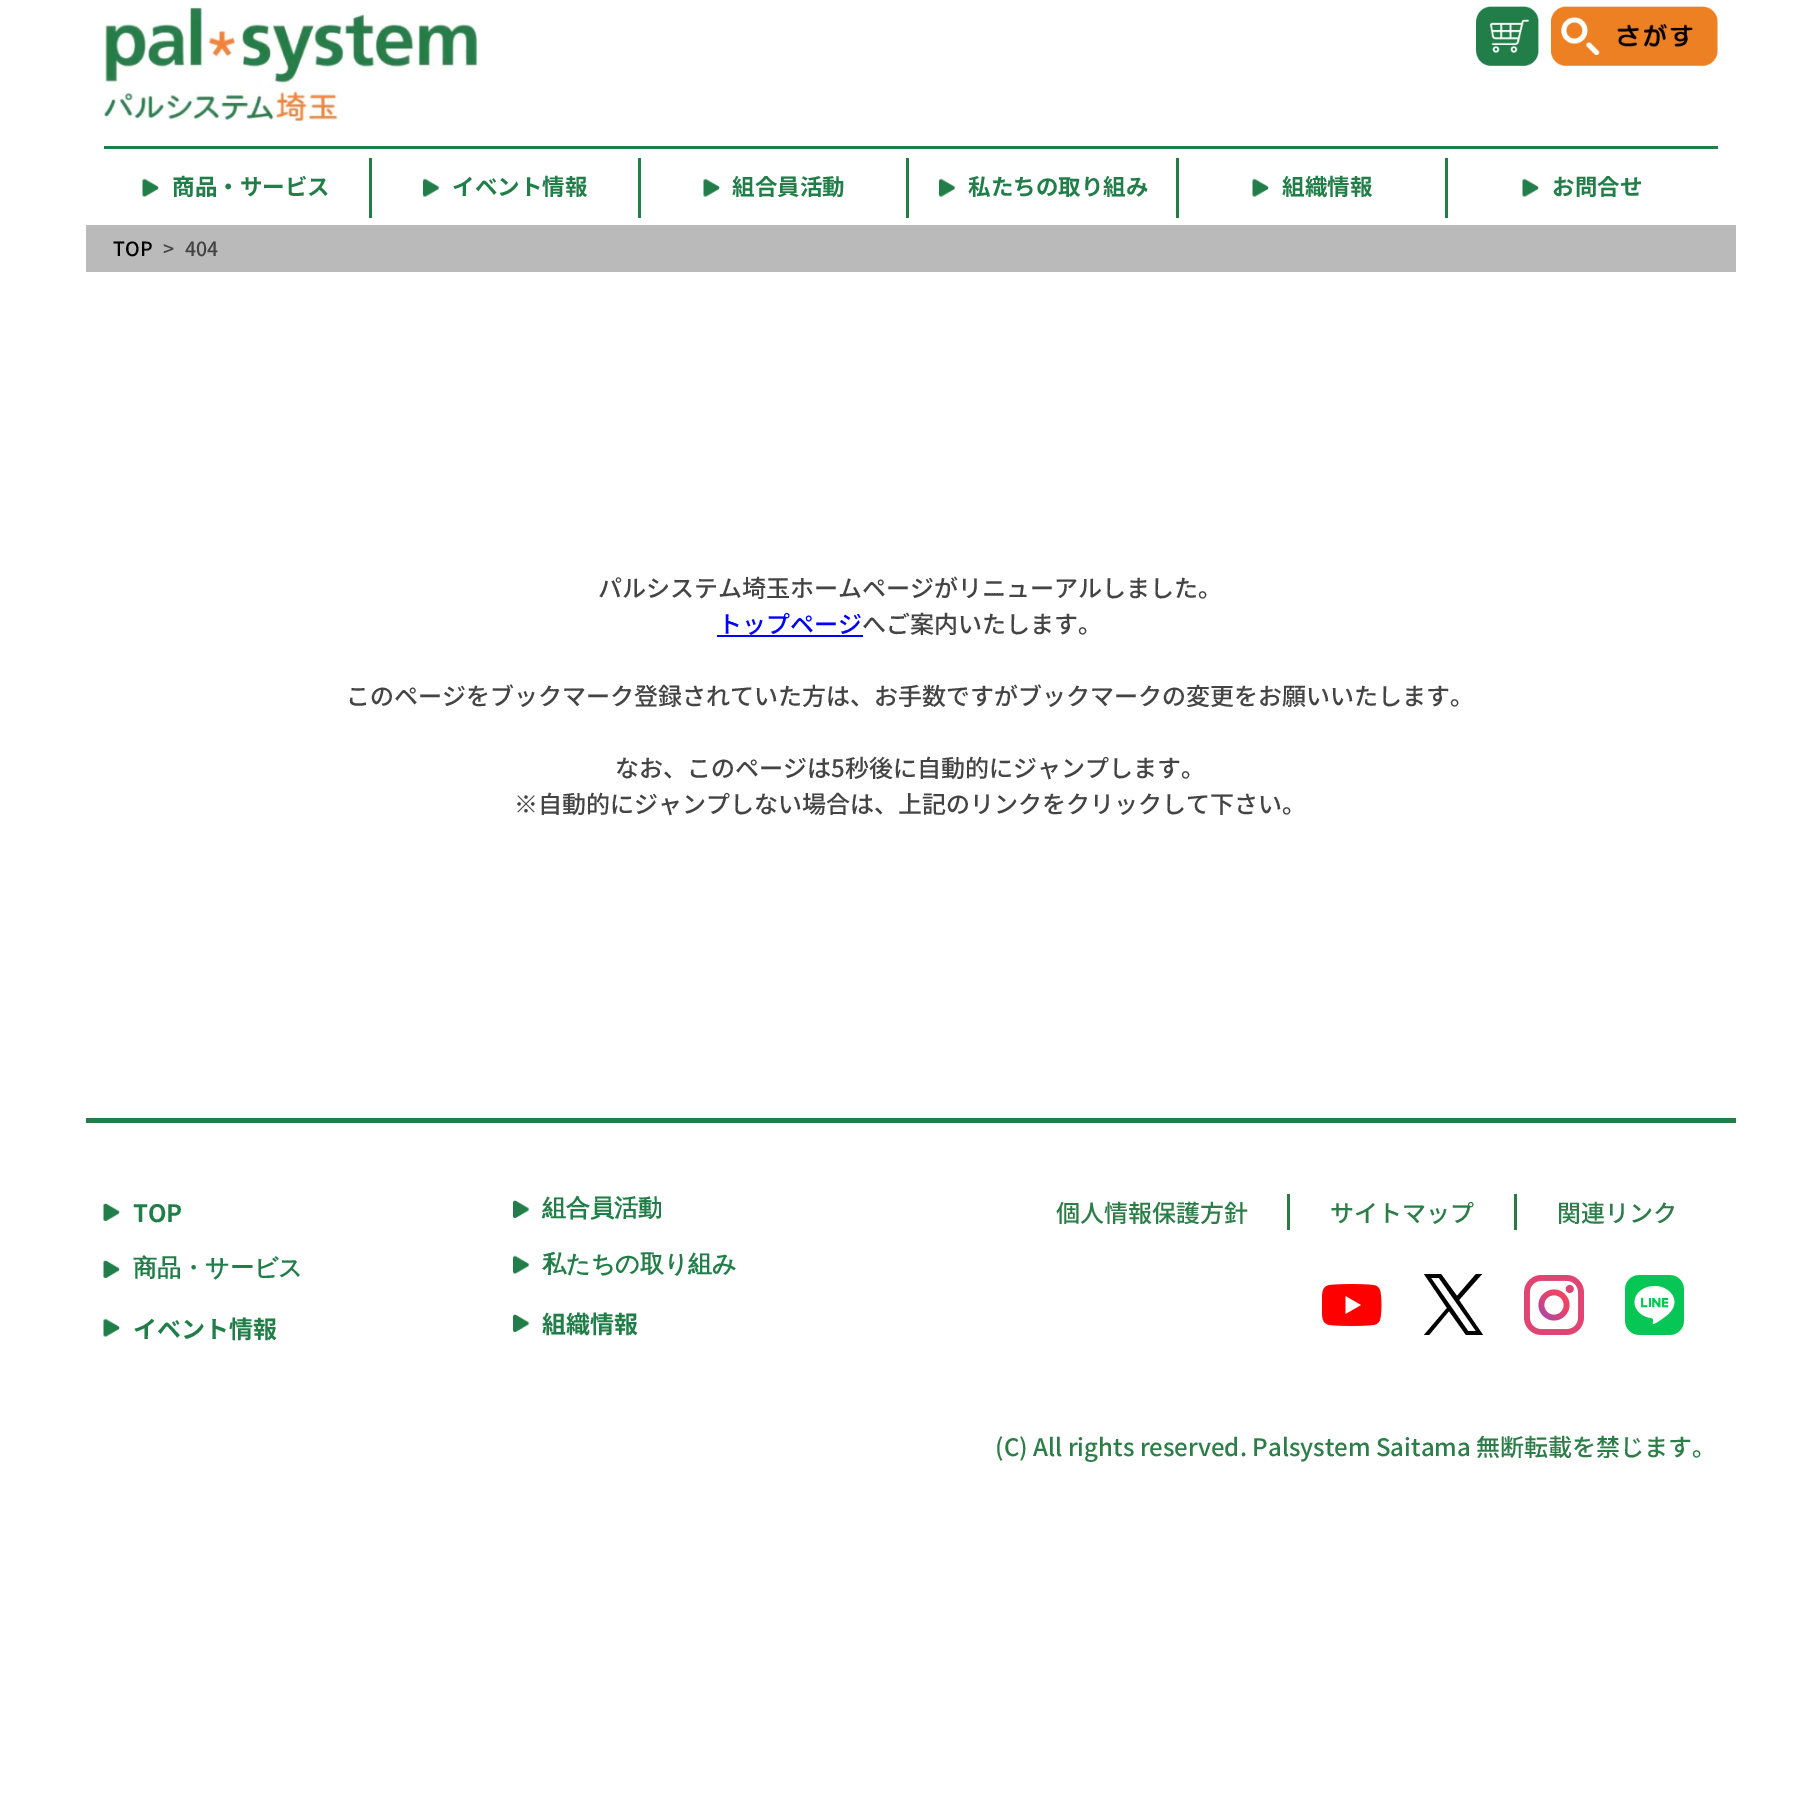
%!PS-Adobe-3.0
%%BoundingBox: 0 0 1819 1793
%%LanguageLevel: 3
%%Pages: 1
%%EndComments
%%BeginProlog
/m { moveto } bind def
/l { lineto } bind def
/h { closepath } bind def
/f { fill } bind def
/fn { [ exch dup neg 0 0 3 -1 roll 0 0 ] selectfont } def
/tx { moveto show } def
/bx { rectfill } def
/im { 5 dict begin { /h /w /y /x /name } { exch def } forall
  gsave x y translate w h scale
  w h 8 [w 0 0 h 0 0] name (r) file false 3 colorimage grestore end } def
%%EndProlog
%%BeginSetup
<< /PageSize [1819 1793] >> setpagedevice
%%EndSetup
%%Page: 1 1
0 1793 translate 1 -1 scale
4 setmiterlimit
1 setgray
0 0 1819 1793 bx
(image0.raw) 104 7 374 115 im
(image1.raw) 1476 6 63 60 im
(image2.raw) 1551 6 167 60 im
0.133 0.494 0.282 setrgbcolor
104 146 1614 3 bx
369 158 3 60 bx
(image3.raw) 142 178 17 19 im
/NotoSansJP-Bold 22.5 fn
(商品・サービス) 172 195 tx
638 158 3 60 bx
(image4.raw) 423 178 17 19 im
(イベント情報) 452 195 tx
906 158 3 60 bx
(image3.raw) 703 178 17 19 im
(組合員活動) 732 195 tx
1176 158 3 60 bx
(image4.raw) 939 178 17 19 im
(私たちの取り組み) 968 195 tx
1445 158 3 60 bx
(image3.raw) 1252 178 17 19 im
(組織情報) 1282 195 tx
(image3.raw) 1522 178 17 19 im
(お問合せ) 1552 195 tx
0.729 setgray
86 225 1650 47 bx
/NotoSansJP-Medium 19.5 fn
0 setgray
(TOP) 113 256 tx
0.267 setgray
(>) 163 256 tx
(404) 185 256 tx
/NotoSansJP-Medium 24 fn
(パルシステム埼玉ホームページがリニューアルしました。) 598 597 tx
0 0 1 setrgbcolor
(トップページ) 718 633 tx
717 635 146 2 bx
0.267 setgray
(へご案内いたします。) 862 633 tx
(このページをブックマーク登録されていた方は、お手数ですがブックマークの変更をお願いいたします。) 346 705 tx
(なお、このページは5秒後に自動的にジャンプします。) 615 777 tx
(※自動的にジャンプしない場合は、上記のリンクをクリックして下さい。) 514 813 tx
0.133 0.494 0.282 setrgbcolor
86 1118 1650 5 bx
(image5.raw) 103 1203 17 18 im
/NotoSansJP-Bold 24 fn
(TOP) 133 1222 tx
(image5.raw) 103 1260 17 18 im
/WenQuanYiZenHei-Bold 24 fn
(商品・サービス) 133 1276 tx
(image3.raw) 103 1318 17 19 im
/NotoSansJP-Bold 24 fn
(イベント情報) 133 1338 tx
(image6.raw) 513 1200 17 18 im
/WenQuanYiZenHei-Bold 24 fn
(組合員活動) 542 1216 tx
(image4.raw) 513 1255 17 19 im
(私たちの取り組み) 542 1272 tx
(image6.raw) 513 1314 17 18 im
/NotoSansJP-Bold 24 fn
(組織情報) 542 1333 tx
0.169 0.475 0.271 setrgbcolor
1287 1194 3 36 bx
/NotoSansJP-Medium 24 fn
0.173 0.49 0.278 setrgbcolor
(個人情報保護方針) 1056 1222 tx
0.169 0.475 0.271 setrgbcolor
1514 1194 3 36 bx
0.173 0.49 0.278 setrgbcolor
(サイトマップ) 1330 1222 tx
(関連リンク) 1557 1222 tx
(image7.raw) 1322 1284 60 42 im
0 setgray
1459 1300 m 1482 1274 l 1476 1274 l 1457 1296 l 1441 1274 l 1424 1274 l 1447 1308 l 1424 1335 l 1429 1335 l 1449 1311 l 1466 1335 l 1483 1335 l h 1452 1308 m 1431 1278 l 1439 1278 l 1476 1331 l 1468 1331 l h f
(image8.raw) 1524 1275 60 60 im
(image9.raw) 1625 1275 59 60 im
0.173 0.49 0.278 setrgbcolor
(\(C\) All rights reserved. Palsystem Saitama 無断転載を禁じます。) 995 1456 tx
showpage
%%EOF
